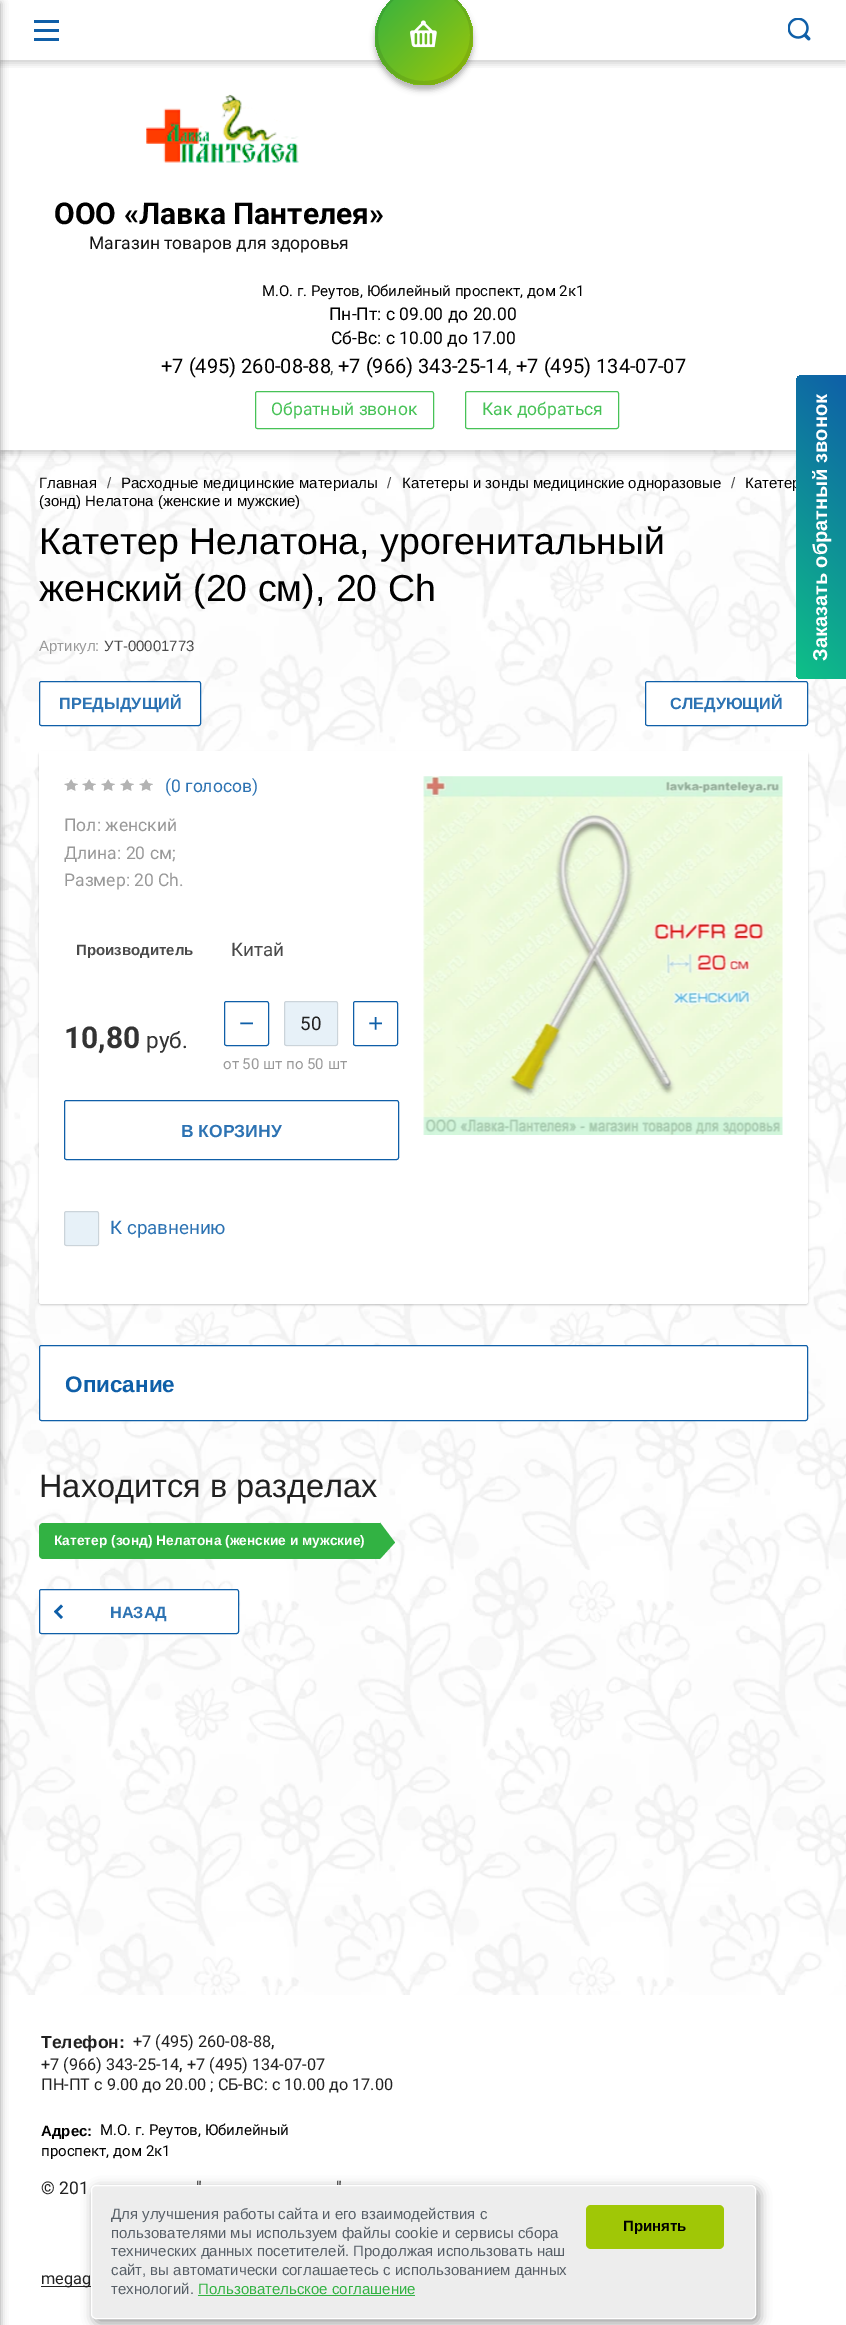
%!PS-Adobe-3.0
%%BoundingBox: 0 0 846 2325
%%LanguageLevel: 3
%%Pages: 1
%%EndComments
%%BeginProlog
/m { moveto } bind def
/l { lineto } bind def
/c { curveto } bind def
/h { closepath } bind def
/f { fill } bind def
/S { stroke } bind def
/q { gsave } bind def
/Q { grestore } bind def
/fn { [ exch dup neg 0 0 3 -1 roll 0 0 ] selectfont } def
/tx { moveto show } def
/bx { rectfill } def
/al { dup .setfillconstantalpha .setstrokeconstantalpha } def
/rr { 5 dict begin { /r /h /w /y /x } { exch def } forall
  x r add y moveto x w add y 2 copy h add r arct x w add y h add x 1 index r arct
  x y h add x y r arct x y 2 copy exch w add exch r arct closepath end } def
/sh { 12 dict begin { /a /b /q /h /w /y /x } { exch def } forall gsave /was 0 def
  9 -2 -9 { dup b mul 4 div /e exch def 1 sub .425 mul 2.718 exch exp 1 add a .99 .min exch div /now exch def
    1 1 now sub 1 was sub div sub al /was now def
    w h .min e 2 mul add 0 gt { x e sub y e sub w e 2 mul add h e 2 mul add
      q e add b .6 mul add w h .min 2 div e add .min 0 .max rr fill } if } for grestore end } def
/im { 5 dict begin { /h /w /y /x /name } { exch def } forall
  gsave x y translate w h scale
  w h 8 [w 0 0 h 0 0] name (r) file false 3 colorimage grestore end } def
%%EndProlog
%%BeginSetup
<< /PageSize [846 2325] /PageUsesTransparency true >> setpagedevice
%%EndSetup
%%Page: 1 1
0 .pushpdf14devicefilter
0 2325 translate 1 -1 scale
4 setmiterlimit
1 setgray
0 0 846 2325 bx
(image0.raw) 0 450 846 1545 im
0 setgray
0 3 846 450 0 4 0.2 sh
1 setgray
0 0 846 450 bx
0 setgray
-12 3 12 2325 0 4 0.2 sh
-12 3 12 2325 0 4 0.2 sh
q
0 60 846 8 rectclip
0 3 846 60 0 4 0.2 sh
Q
375 -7 98 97 48.5 3 0.3 sh
q 375 -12 98 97 48.5 rr clip newpath
<< /ShadingType 2 /ColorSpace /DeviceRGB /Coords [473 85 375 -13] /Extend [true true] /Function << /FunctionType 2 /Domain [0 1] /C0 [0.627 0.78 0.024] /C1 [0.196 0.698 0.263] /N 1 >> >> shfill Q
0.09 al
424 -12 m 371 -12 356 61 405 81 c 412 84 415 84 424 85 c 430 86 438 84 443 81 c 492 61 477 -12 424 -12 c h 424 -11 m 398 -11 378 9 378 35 c 378 61 398 81 424 81 c 449 81 470 61 470 35 c 470 9 449 -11 424 -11 c h eofill
1 al
(image1.raw) 410 20 27 28 im
0.059 0.373 0.659 setrgbcolor
34 20 25 3 bx
34 38 25 3 bx
34 29 25 3 bx
(image2.raw) 788 18 23 23 im
(image3.raw) 146 94 153 69 im
/Roboto-Bold 30 fn
0 setgray
(ООО «Лавка Пантелея») 54 224 tx
/Roboto-Regular 17.5 fn
0.071 setgray
(Магазин товаров для здоровья) 89 249 tx
/Roboto-Regular 15 fn
0 setgray
(М.О. г. Реутов, Юбилейный проспект, дом 2к1) 262 296 tx
/Roboto-Regular 17.5 fn
(Пн-Пт: с 09.00 до 20.00) 329 320 tx
(Сб-Вс: с 10.00 до 17.00) 331 344 tx
/Roboto-Regular 20 fn
(+7 \(495\) 260-08-88) 161 373 tx
/Roboto-Regular 17.5 fn
0.29 setgray
(,) 330 373 tx
/Roboto-Regular 20 fn
0 setgray
(+7 \(966\) 343-25-14) 338 373 tx
/Roboto-Regular 17.5 fn
0.29 setgray
(,) 508 373 tx
/Roboto-Regular 20 fn
0 setgray
(+7 \(495\) 134-07-07) 516 373 tx
0.278 0.761 0.341 setrgbcolor
255.5 391.5 178 37 2 rr S
/Roboto-Regular 17.5 fn
(Обратный звонок) 271 415 tx
465.5 391.5 153 37 2 rr S
(Как добраться) 482 415 tx
/LiberationSans-Regular 15 fn
0 setgray
(Главная) 39 488 tx
0.29 setgray
(/) 107 488 tx
0 setgray
(Расходные медицинские материалы) 121 488 tx
0.29 setgray
(/) 387 488 tx
0 setgray
(Катетеры и зонды медицинские одноразовые) 402 488 tx
0.29 setgray
(/) 731 488 tx
0 setgray
(Катетер) 745 488 tx
(\(зонд\) Нелатона \(женские и мужские\)) 39 506 tx
/LiberationSans-Regular 37.5 fn
(Катетер Нелатона, урогенитальный) 39 554 tx
(женский \(20 см\), 20 Ch) 39 601 tx
/LiberationSans-Regular 15 fn
0.6 setgray
(Артикул:) 39 651 tx
0.29 setgray
(УТ-00001773) 104 651 tx
1 setgray
39.5 681.5 161 44 2 rr q f Q
0.059 0.373 0.659 setrgbcolor
S
/LiberationSans-Bold 16.25 fn
0.176 0.451 0.702 setrgbcolor
(ПРЕДЫДУЩИЙ) 59 709 tx
1 setgray
645.5 681.5 162 44 2 rr q f Q
0.059 0.373 0.659 setrgbcolor
S
0.176 0.451 0.702 setrgbcolor
(СЛЕДУЮЩИЙ) 670 709 tx
0 setgray
39 753 769 552 2.5 1 0.2 sh
1 setgray
39 751 769 553 2.5 rr f
(image4.raw) 64 778 89 14 im
/Roboto-Regular 17.5 fn
0.176 0.451 0.702 setrgbcolor
(\(0 голосов\)) 165 792 tx
0.6 setgray
(Пол: женский) 64 831 tx
(Длина: 20 см;) 64 859 tx
(Размер: 20 Ch.) 64 886 tx
/LiberationSans-Bold 15 fn
0.29 setgray
(Производитель) 76 955 tx
/Roboto-Regular 18.75 fn
(Китай) 231 956 tx
/Roboto-Bold 30 fn
0.2 setgray
(10,80) 64 1048 tx
/Roboto-Regular 22.5 fn
(руб.) 146 1048 tx
0.059 0.373 0.659 setrgbcolor
224.5 1001.5 44 44 2 rr S
/LiberationSans-Regular 26 fn
(−) 239 1032 tx
0.906 0.945 0.973 setrgbcolor
284 1001 54 45 2.5 rr f
0.12 al
0 setgray
284.5 1001.5 53 44 2 rr S
/Roboto-Regular 18.75 fn
1 al
0.129 setgray
(50) 300 1030 tx
0.059 0.373 0.659 setrgbcolor
353.5 1001.5 44 44 2 rr S
/LiberationSans-Regular 26 fn
(+) 368 1032 tx
/Roboto-Regular 15 fn
0.6 setgray
(от 50 шт по 50 шт) 223 1069 tx
0.059 0.373 0.659 setrgbcolor
64.5 1100.5 334 59 2 rr S
/LiberationSans-Bold 17.5 fn
0.176 0.451 0.702 setrgbcolor
(В КОРЗИНУ) 181 1137 tx
0.906 0.945 0.973 setrgbcolor
64 1211 35 35 2.5 rr f
0.12 al
0 setgray
64.5 1211.5 34 34 2 rr S
/Roboto-Regular 18.75 fn
1 al
0.176 0.451 0.702 setrgbcolor
(К сравнению) 110 1234 tx
(image5.raw) 423 776 360 359 im
1 setgray
39 1345 769 76 bx
0.059 0.373 0.659 setrgbcolor
39.5 1345.5 768 75 2 rr S
/LiberationSans-Bold 22.5 fn
(Описание) 65 1392 tx
/LiberationSans-Regular 32.5 fn
0.129 setgray
(Находится в разделах) 39 1497 tx
0.196 0.698 0.263 setrgbcolor
43 1523 m 380 1523 l 380 1559 l 43 1559 l 41 1559 39 1557 39 1555 c 39 1527 l 39 1525 41 1523 43 1523 c h f
/LiberationSans-Bold 13.75 fn
1 setgray
(Катетер \(зонд\) Нелатона \(женские и мужские\)) 54 1545 tx
0.196 0.698 0.263 setrgbcolor
380 1559 m 380 1522.5 l 395 1542.5 l h f
1 setgray
39.5 1589.5 199 44 2 rr q f Q
0.059 0.373 0.659 setrgbcolor
S
54 1611.5 m 61 1604.5 l 63 1606.5 l 56 1613.5 l h f
54 1611.5 m 56 1610 l 63 1617 l 61 1619 l h f
/LiberationSans-Bold 16.25 fn
0.176 0.451 0.702 setrgbcolor
(НАЗАД) 110 1618 tx
/LiberationSans-Bold 17.5 fn
0.129 setgray
(Телефон:) 41 2048 tx
/Roboto-Regular 16.25 fn
(+7 \(495\) 260-08-88) 133 2047 tx
/Roboto-Regular 17.5 fn
(,) 271 2047 tx
/Roboto-Regular 16.25 fn
(+7 \(966\) 343-25-14) 41 2070 tx
/Roboto-Regular 17.5 fn
(,) 179 2070 tx
/Roboto-Regular 16.25 fn
(+7 \(495\) 134-07-07) 187 2070 tx
(ПН-ПТ с 9.00 до 20.00 ; СБ-ВС: с 10.00 до 17.00) 41 2090 tx
/LiberationSans-Bold 15 fn
0 setgray
(Адрес:) 41 2136 tx
/Roboto-Regular 15 fn
(М.О. г. Реутов, Юбилейный) 100 2135 tx
(проспект, дом 2к1) 41 2156 tx
/Roboto-Regular 17.5 fn
0.129 setgray
(© 201) 41 2194 tx
(") 196 2194 tx
(") 336 2194 tx
41 2286 50 1 bx
/Roboto-Regular 16.25 fn
(megag) 41 2284 tx
q 796 673 m 796 381 l 796 378 799 375 802 375 c 846 375 l 846 679 l 802 679 l 799 679 796 677 796 673 c h clip newpath
<< /ShadingType 2 /ColorSpace /DeviceRGB /Coords [733 616 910 439] /Extend [true true] /Function << /FunctionType 2 /Domain [0 1] /C0 [0.055 0.757 0.529] /C1 [0.059 0.373 0.659] /N 1 >> >> shfill Q
/LiberationSans-Bold 20 fn
1 setgray
q 827 661 translate -90 rotate 0 0 m (Заказать обратный звонок) show Q
0 setgray
94 2189 665 134 5 6 0.4 sh
0.929 setgray
91.5 2185.5 664 133 4.5 rr q f Q
1 setgray
S
/LiberationSans-Regular 15 fn
0.341 0.373 0.404 setrgbcolor
(Для улучшения работы сайта и его взаимодействия с) 111 2219 tx
(пользователями мы используем файлы cookie и сервисы сбора) 111 2238 tx
(технических данных посетителей. Продолжая использовать наш) 111 2256 tx
(сайт, вы автоматически соглашаетесь с использованием данных) 111 2275 tx
(технологий.) 111 2294 tx
0.196 0.698 0.263 setrgbcolor
(Пользовательское соглашение) 198 2294 tx
198 2295 217 1 bx
0.627 0.78 0.024 setrgbcolor
586 2205 138 44 5 rr f
/LiberationSans-Bold 15 fn
0 setgray
(Принять) 623 2231 tx
.poppdf14devicefilter showpage
%%EOF
